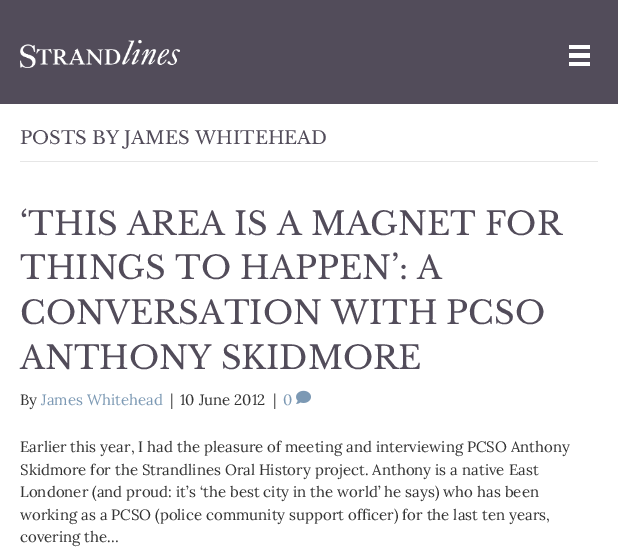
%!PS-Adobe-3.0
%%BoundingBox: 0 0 618 557
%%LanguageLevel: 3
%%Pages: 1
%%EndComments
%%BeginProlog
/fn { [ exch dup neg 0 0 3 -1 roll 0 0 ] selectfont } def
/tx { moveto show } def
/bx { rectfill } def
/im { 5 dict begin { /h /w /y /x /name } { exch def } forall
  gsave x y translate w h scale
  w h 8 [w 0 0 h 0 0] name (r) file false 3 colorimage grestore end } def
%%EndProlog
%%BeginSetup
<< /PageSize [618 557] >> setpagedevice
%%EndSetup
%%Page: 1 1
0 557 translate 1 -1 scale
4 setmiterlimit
1 setgray
0 0 618 557 bx
0.322 0.298 0.353 setrgbcolor
0 0 618 104 bx
(image0.raw) 20 40 160 28 im
1 setgray
569 45 21 4 bx
569 53 21 5 bx
569 62 21 4 bx
0.902 setgray
20 161 578 1 bx
/LibreBaskerville-Regular 18 fn
0.322 0.298 0.353 setrgbcolor
(POSTS BY JAMES WHITEHEAD) 20 144 tx
/LibreBaskerville-Regular 32 fn
(‘THIS AREA IS A MAGNET FOR) 20 235 tx
(THINGS TO HAPPEN’: A) 20 279 tx
(CONVERSATION WITH PCSO) 20 324 tx
(ANTHONY SKIDMORE) 20 369 tx
/Lora-Regular 15 fn
0.2 setgray
(By) 20 405 tx
0.486 0.6 0.706 setrgbcolor
(James Whitehead) 41 405 tx
0.2 setgray
(|) 170 405 tx
(10 June 2012) 180 405 tx
(|) 273 405 tx
0.486 0.6 0.706 setrgbcolor
(0) 283 405 tx
(image1.raw) 296 390 15 14 im
0.2 setgray
(Earlier this year, I had the pleasure of meeting and interviewing PCSO Anthony) 20 452 tx
(Skidmore for the Strandlines Oral History project. Anthony is a native East) 20 475 tx
(Londoner \(and proud: it’s ‘the best city in the world’ he says\) who has been) 20 497 tx
(working as a PCSO \(police community support officer\) for the last ten years,) 20 520 tx
(covering the…) 20 542 tx
showpage
%%EOF
